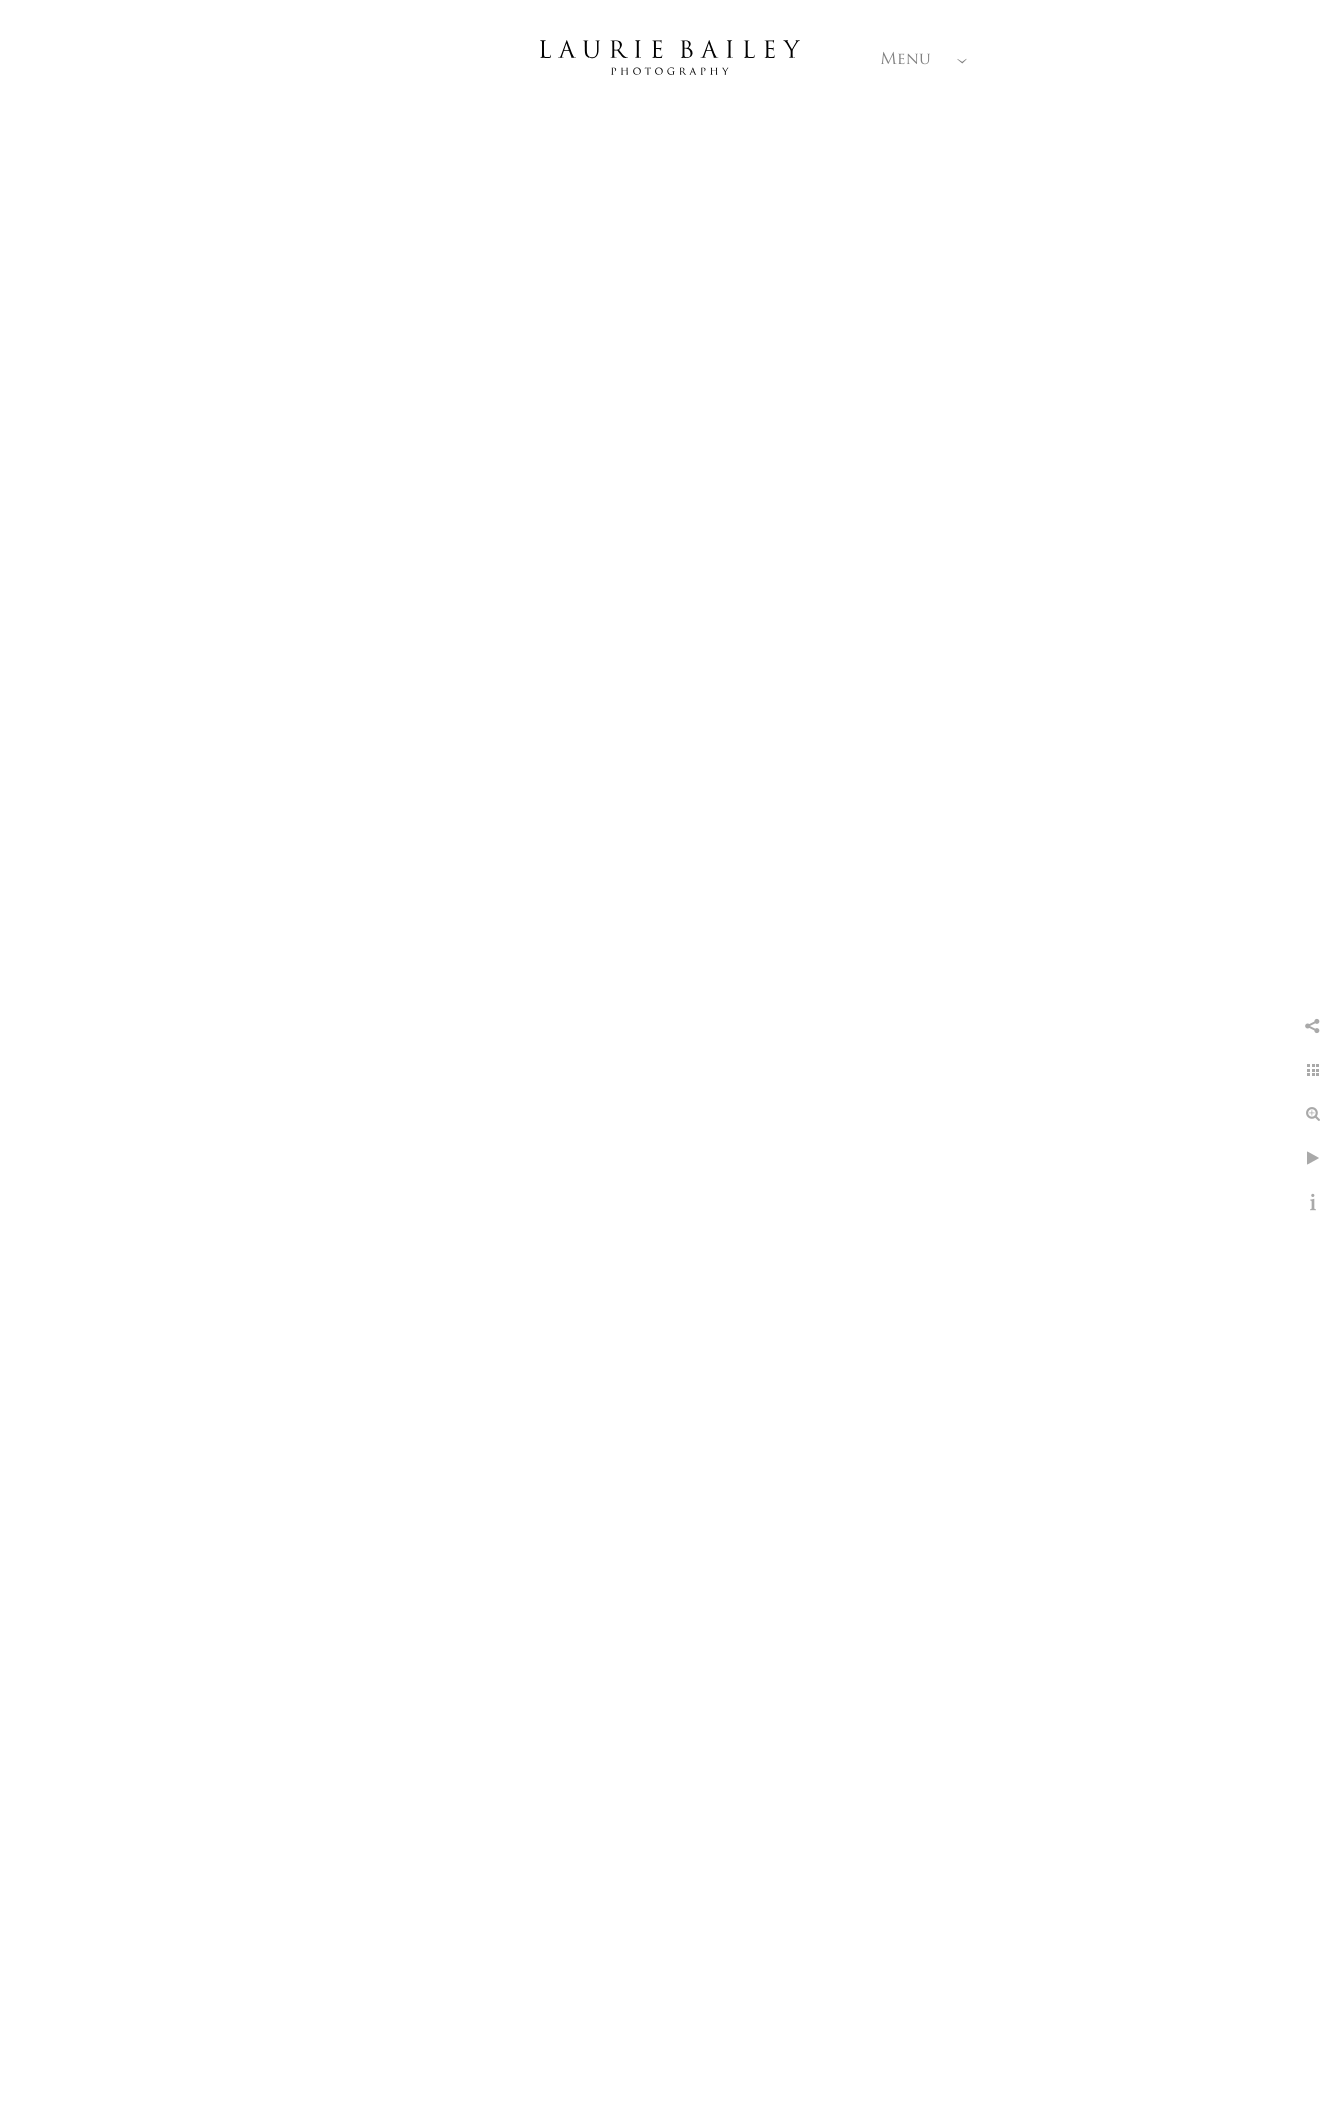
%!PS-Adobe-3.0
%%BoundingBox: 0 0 1340 2127
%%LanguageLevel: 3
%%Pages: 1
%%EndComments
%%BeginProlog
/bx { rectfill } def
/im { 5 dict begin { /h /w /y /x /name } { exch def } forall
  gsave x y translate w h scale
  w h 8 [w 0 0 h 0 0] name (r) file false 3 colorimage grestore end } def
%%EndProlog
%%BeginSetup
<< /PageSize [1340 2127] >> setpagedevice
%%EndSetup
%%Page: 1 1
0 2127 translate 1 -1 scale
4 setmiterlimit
1 setgray
0 0 1340 2127 bx
(image0.raw) 540 40 260 35 im
(image1.raw) 881 51 49 14 im
(image2.raw) 957 58 10 6 im
(image3.raw) 1305 1018 15 16 im
(image4.raw) 1307 1064 12 12 im
(image5.raw) 1306 1107 14 14 im
(image6.raw) 1307 1151 12 14 im
(image7.raw) 1310 1193 6 18 im
showpage
%%EOF
